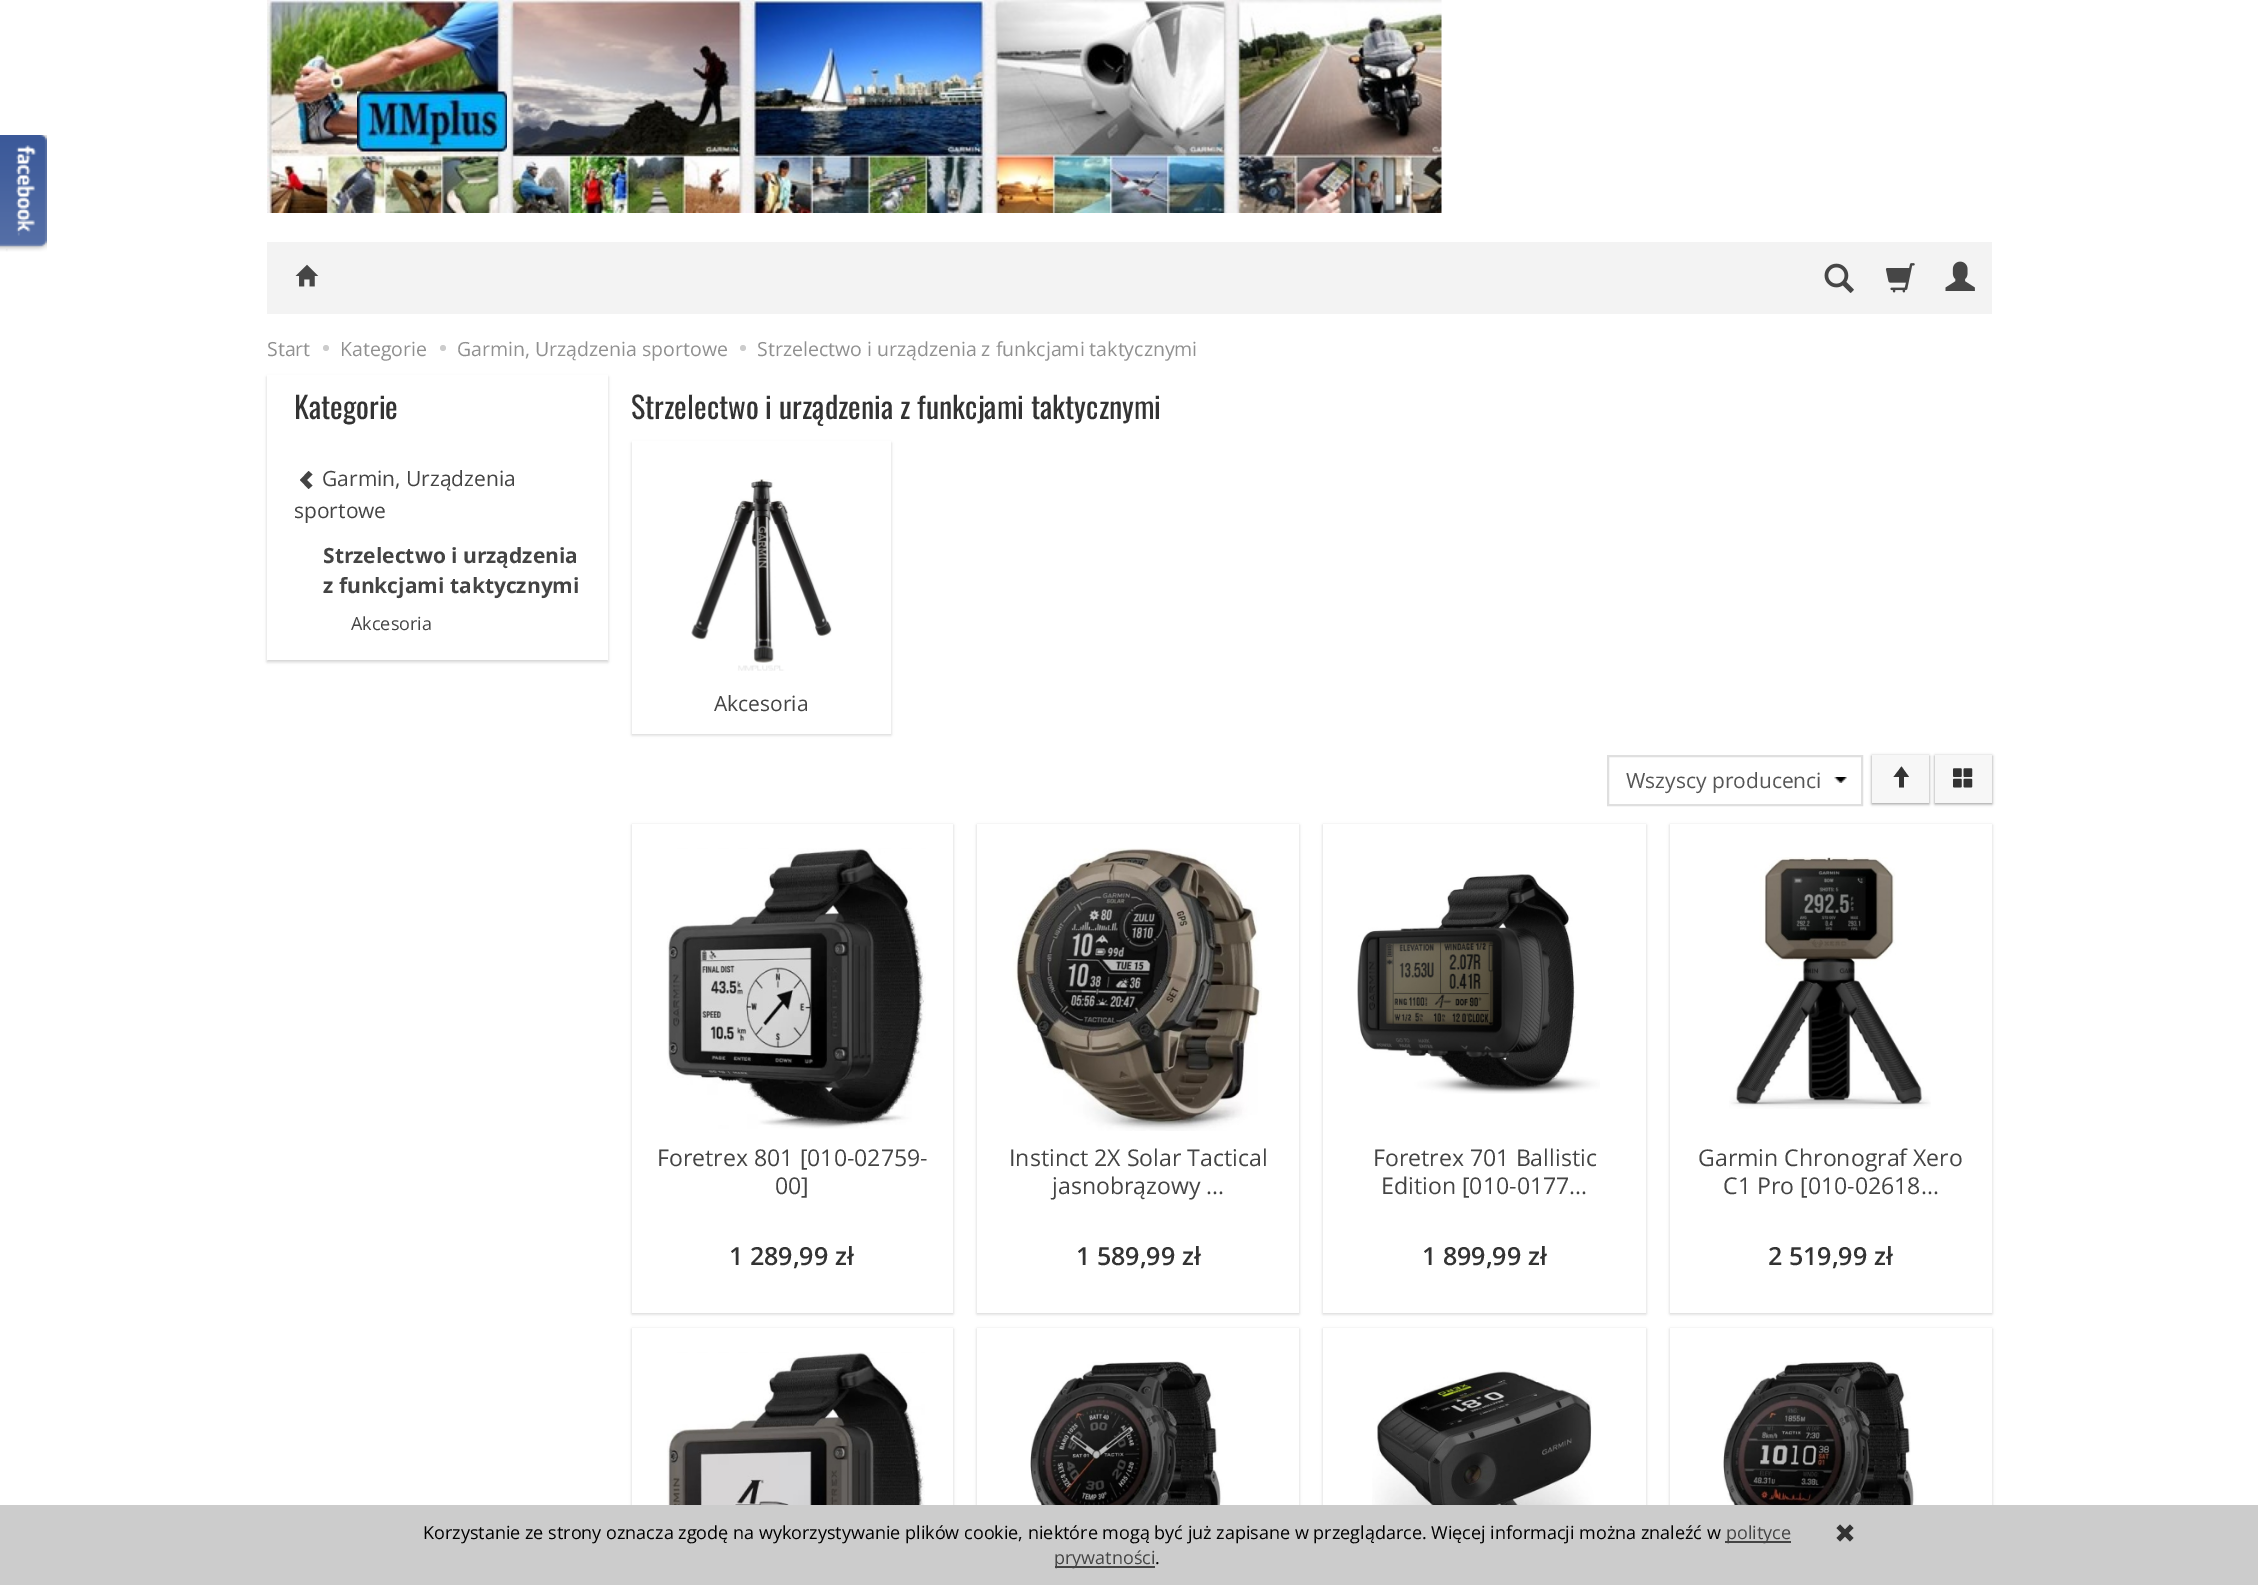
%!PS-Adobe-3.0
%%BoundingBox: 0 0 2258 1585
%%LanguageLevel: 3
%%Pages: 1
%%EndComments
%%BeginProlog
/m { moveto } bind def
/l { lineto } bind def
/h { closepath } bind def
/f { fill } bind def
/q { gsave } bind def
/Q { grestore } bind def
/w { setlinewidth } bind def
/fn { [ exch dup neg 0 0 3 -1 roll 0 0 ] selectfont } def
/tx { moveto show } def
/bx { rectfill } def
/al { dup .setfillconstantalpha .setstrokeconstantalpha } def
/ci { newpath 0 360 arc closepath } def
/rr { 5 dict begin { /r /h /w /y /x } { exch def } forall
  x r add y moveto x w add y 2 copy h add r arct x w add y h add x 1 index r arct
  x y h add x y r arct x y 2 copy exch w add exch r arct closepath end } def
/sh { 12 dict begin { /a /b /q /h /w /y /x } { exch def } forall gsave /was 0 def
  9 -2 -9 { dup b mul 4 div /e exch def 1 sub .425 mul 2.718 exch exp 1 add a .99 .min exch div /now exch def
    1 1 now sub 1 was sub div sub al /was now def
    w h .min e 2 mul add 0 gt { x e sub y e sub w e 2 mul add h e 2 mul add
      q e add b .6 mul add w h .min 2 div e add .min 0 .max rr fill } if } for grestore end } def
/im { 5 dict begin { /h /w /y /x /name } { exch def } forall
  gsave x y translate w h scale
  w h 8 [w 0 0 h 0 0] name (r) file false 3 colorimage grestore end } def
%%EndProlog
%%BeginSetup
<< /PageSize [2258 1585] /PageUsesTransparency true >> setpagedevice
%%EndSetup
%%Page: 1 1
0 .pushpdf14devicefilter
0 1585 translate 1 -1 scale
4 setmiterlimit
1 setgray
0 0 2258 1585 bx
(image0.raw) 0 135 47 117 im
(image1.raw) 267 0 1175 213 im
(image2.raw) 357 91 150 61 im
0.953 setgray
267 242 1725 72 bx
(image3.raw) 295 264 24 23 im
(image4.raw) 1824 263 30 30 im
(image5.raw) 1885 263 30 30 im
(image6.raw) 1945 261 30 30 im
/OpenSans-Regular 19.5 fn
0.565 setgray
(Start) 267 356 tx
0.8 setgray
326 348 3 ci f
0.565 setgray
(Kategorie) 340 356 tx
0.8 setgray
443 348 3 ci f
0.565 setgray
(Garmin, Urządzenia sportowe) 457 356 tx
0.8 setgray
743 348 3 ci f
0.565 setgray
(Strzelectwo i urządzenia z funkcjami taktycznymi) 757 356 tx
0.827 setgray
267 377 341 285 0 1.5 1 sh
1 setgray
267 375 341 285 bx
/Oswald-Regular 30 fn
0.2 setgray
(Kategorie) 294 419 tx
0.267 setgray
300 480 m 308.5 489 l 312.5 485.5 l 307 480 l 312.5 474.5 l 308.5 471 l h f
/OpenSans-Regular 21 fn
(Garmin, Urządzenia) 322 486 tx
(sportowe) 294 518 tx
/OpenSans-Bold 21 fn
(Strzelectwo i urządzenia) 323 563 tx
(z funkcjami taktycznymi) 323 593 tx
/OpenSans-Regular 18 fn
(Akcesoria) 351 630 tx
/Oswald-Regular 30 fn
0.2 setgray
(Strzelectwo i urządzenia z funkcjami taktycznymi) 631 419 tx
0.827 setgray
632 443 259 292 0 1.5 1 sh
1 setgray
632 441 259 293 bx
(image7.raw) 691 479 141 192 im
/OpenSans-Regular 21 fn
0.267 setgray
(Akcesoria) 714 711 tx
(image8.raw) 1834 777 13 6 im
0.875 setgray
2 w
1608 756 254 49 rectstroke
0.333 setgray
(Wszyscy producenci) 1626 788 tx
0.592 setgray
1872 756 57 48 0 1.5 1 sh
0.969 setgray
1872 755 57 48 bx
0.2 setgray
1893.5 777 m 1901.5 766.5 l 1909 777 l 1904 777 l 1904 787.5 l 1899 787.5 l 1899 777 l h f
0.592 setgray
1935 756 57 48 0 1.5 1 sh
0.969 setgray
1935 755 57 48 bx
(image9.raw) 1953 768 20 20 im
0.827 setgray
632 825 321 489 0 1.5 1 sh
1 setgray
632 824 321 489 bx
(image10.raw) 667 848 259 281 im
/OpenSans-Regular 23.1 fn
0.267 setgray
(Foretrex 801 [010-02759-) 657 1166 tx
(00]) 775 1194 tx
/OpenSans-SemiBold 25 fn
0.2 setgray
(1 289,99 zł) 729 1265 tx
0.827 setgray
977 825 322 489 0 1.5 1 sh
1 setgray
977 824 322 489 bx
(image11.raw) 1012 848 250 283 im
/OpenSans-Regular 23.1 fn
0.267 setgray
(Instinct 2X Solar Tactical) 1009 1166 tx
(jasnobrązowy ...) 1052 1194 tx
/OpenSans-SemiBold 25 fn
0.2 setgray
(1 589,99 zł) 1076 1265 tx
0.827 setgray
1323 825 323 489 0 1.5 1 sh
1 setgray
1323 824 323 489 bx
(image12.raw) 1357 874 243 220 im
/OpenSans-Regular 23.1 fn
0.267 setgray
(Foretrex 701 Ballistic) 1373 1166 tx
(Edition [010-0177...) 1381 1194 tx
/OpenSans-SemiBold 25 fn
0.2 setgray
(1 899,99 zł) 1422 1265 tx
0.827 setgray
1670 825 322 489 0 1.5 1 sh
1 setgray
1670 824 322 489 bx
(image13.raw) 1729 857 202 252 im
/OpenSans-Regular 23.1 fn
0.267 setgray
(Garmin Chronograf Xero) 1698 1166 tx
(C1 Pro [010-02618...) 1723 1194 tx
/OpenSans-SemiBold 25 fn
0.2 setgray
(2 519,99 zł) 1768 1265 tx
0.827 setgray
632 1329 321 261 0 1.5 1 sh
1 setgray
632 1328 321 177 bx
(image14.raw) 667 1352 258 153 im
q
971 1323 m 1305 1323 l 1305 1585 l 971 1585 l h 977 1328 m 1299 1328 l 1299 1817 l 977 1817 l h eoclip newpath
0.827 setgray
977 1329 322 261 0 1.5 1 sh
Q
(image15.raw) 1030 1361 208 144 im
0.827 setgray
1323 1329 323 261 0 1.5 1 sh
1 setgray
1323 1328 323 177 bx
(image16.raw) 1372 1370 222 135 im
q
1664 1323 m 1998 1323 l 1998 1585 l 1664 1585 l h 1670 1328 m 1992 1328 l 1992 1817 l 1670 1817 l h eoclip newpath
0.827 setgray
1670 1329 322 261 0 1.5 1 sh
Q
(image17.raw) 1723 1361 208 144 im
0.8 setgray
0 1505 2258 80 bx
/OpenSans-Regular 18 fn
0 setgray
(Korzystanie ze strony oznacza zgodę na wykorzystywanie plików cookie, niektóre mogą być już zapisane w przeglądarce. Więcej informacji można znaleźć w) 423 1539 tx
0.267 setgray
1725 1541 66 2 bx
(polityce) 1726 1539 tx
1055 1566 100 2 bx
(prywatności) 1054 1564 tx
0 setgray
(.) 1155 1564 tx
(image18.raw) 1836 1524 18 18 im
.poppdf14devicefilter showpage
%%EOF
